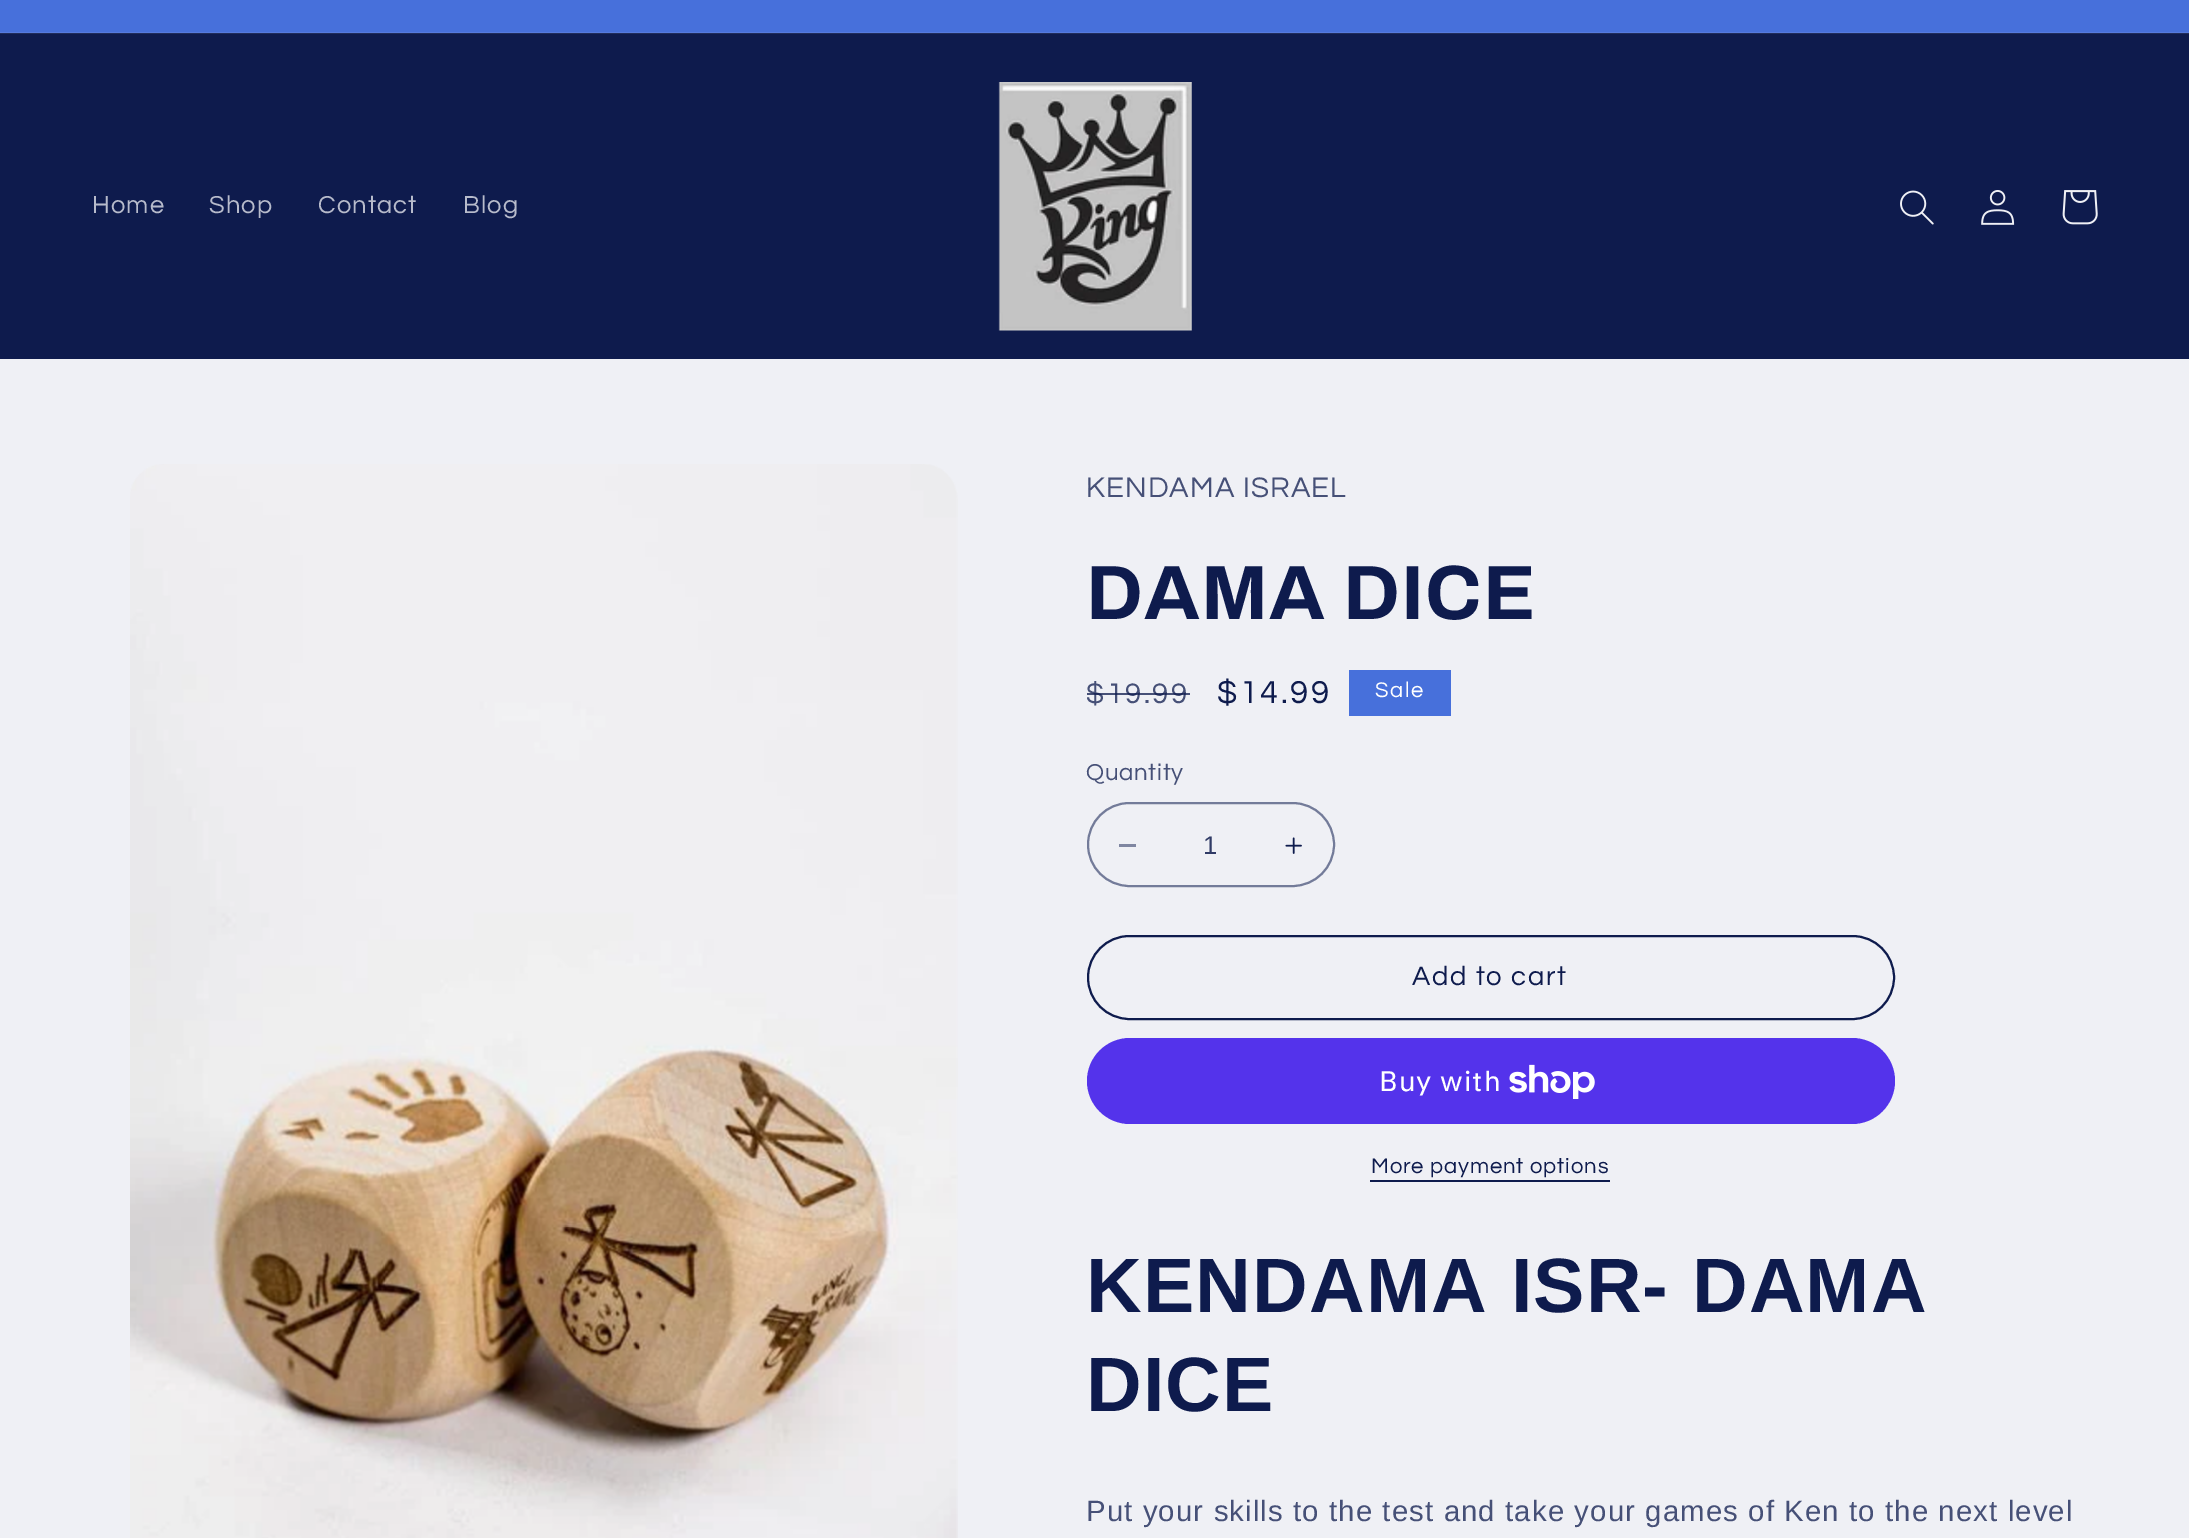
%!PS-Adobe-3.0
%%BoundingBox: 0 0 2189 1538
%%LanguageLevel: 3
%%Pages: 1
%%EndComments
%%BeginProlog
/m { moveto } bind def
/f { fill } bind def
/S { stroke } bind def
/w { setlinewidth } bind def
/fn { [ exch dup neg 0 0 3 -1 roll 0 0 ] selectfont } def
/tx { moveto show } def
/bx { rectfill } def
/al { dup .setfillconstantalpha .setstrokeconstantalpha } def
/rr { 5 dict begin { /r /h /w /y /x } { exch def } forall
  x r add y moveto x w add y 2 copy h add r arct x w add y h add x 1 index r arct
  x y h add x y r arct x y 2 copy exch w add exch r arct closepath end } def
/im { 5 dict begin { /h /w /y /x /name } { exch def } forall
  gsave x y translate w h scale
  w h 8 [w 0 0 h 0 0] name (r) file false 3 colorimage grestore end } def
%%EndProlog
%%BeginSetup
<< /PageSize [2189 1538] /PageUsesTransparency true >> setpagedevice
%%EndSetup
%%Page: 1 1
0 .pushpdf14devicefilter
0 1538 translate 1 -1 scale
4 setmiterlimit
0.937 0.941 0.961 setrgbcolor
0 0 2189 1538 bx
0.278 0.439 0.859 setrgbcolor
0 0 2189 32 bx
0.337 0.482 0.871 setrgbcolor
0 32 2189 1 bx
0.055 0.106 0.302 setrgbcolor
0 34 2189 325 bx
0.129 0.176 0.357 setrgbcolor
0 33 2189 1 bx
/Questrial-Regular 25.5 fn
0.718 0.733 0.796 setrgbcolor
92 213 m 1.1 0 (Home) ashow
209 213 m 1.1 0 (Shop) ashow
318 213 m 1.1 0 (Contact) ashow
463 213 m 1.1 0 (Blog) ashow
(image0.raw) 998 82 194 249 im
(image1.raw) 1900 190 34 35 im
(image2.raw) 1981 190 34 35 im
(image3.raw) 2062 190 36 35 im
(image4.raw) 130 464 828 1074 im
/Questrial-Regular 29.4 fn
0.275 0.314 0.467 setrgbcolor
1086 497 m 1.1 0 (KENDAMA ISRAEL) ashow
/Archivo-Bold 77 fn
0.055 0.106 0.302 setrgbcolor
1086 619 m 1.2 0 (DAMA DICE) ashow
/Questrial-Regular 29.4 fn
0.275 0.314 0.467 setrgbcolor
1086 703 m 2.5 0 ($19.99) ashow
0.75 al
0.055 0.106 0.302 setrgbcolor
1087 693 103 2 bx
/Questrial-Regular 33 fn
1 al
1217 703 m 2.5 0 ($14.99) ashow
0.278 0.439 0.859 setrgbcolor
1349 670 102 46 bx
/Questrial-Regular 22 fn
1 setgray
1375 697 m 1.75 0 (Sale) ashow
/Questrial-Regular 24 fn
0.275 0.314 0.467 setrgbcolor
1086 780 m 0.75 0 (Quantity) ashow
0.498 0.525 0.631 setrgbcolor
1119 844 17 3 bx
(image5.raw) 1285 837 17 17 im
0.451 0.482 0.6 setrgbcolor
2 w
1088 803 246 83 41.5 rr S
/LiberationSans-Regular 25.5 fn
0.188 0.231 0.4 setrgbcolor
(1) 1203 854 tx
0.055 0.106 0.302 setrgbcolor
1088 936 806 83 41.5 rr S
/Questrial-Regular 27.5 fn
1412 985 m 1.75 0 (Add to cart) ashow
0.329 0.2 0.922 setrgbcolor
1087 1038 808 86 43 rr f
/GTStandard-Regular 28 fn
1 setgray
1379 1091 m 1.1 0 (Buy with) ashow
(image6.raw) 1509 1064 86 35 im
/Questrial-Regular 22 fn
0.055 0.106 0.302 setrgbcolor
1371 1173 m 0.9 0 (More payment options) ashow
1370 1180 240 2 bx
/LiberationSans-Bold 77 fn
1086 1312 m 1.2 0 (KENDAMA ISR- DAMA) ashow
1086 1411 m 1.2 0 (DICE) ashow
/LiberationSans-Regular 29.4 fn
0.275 0.314 0.467 setrgbcolor
1086 1521 m 1.1 0 (Put your skills to the test and take your games of Ken to the next level) ashow
.poppdf14devicefilter showpage
%%EOF
